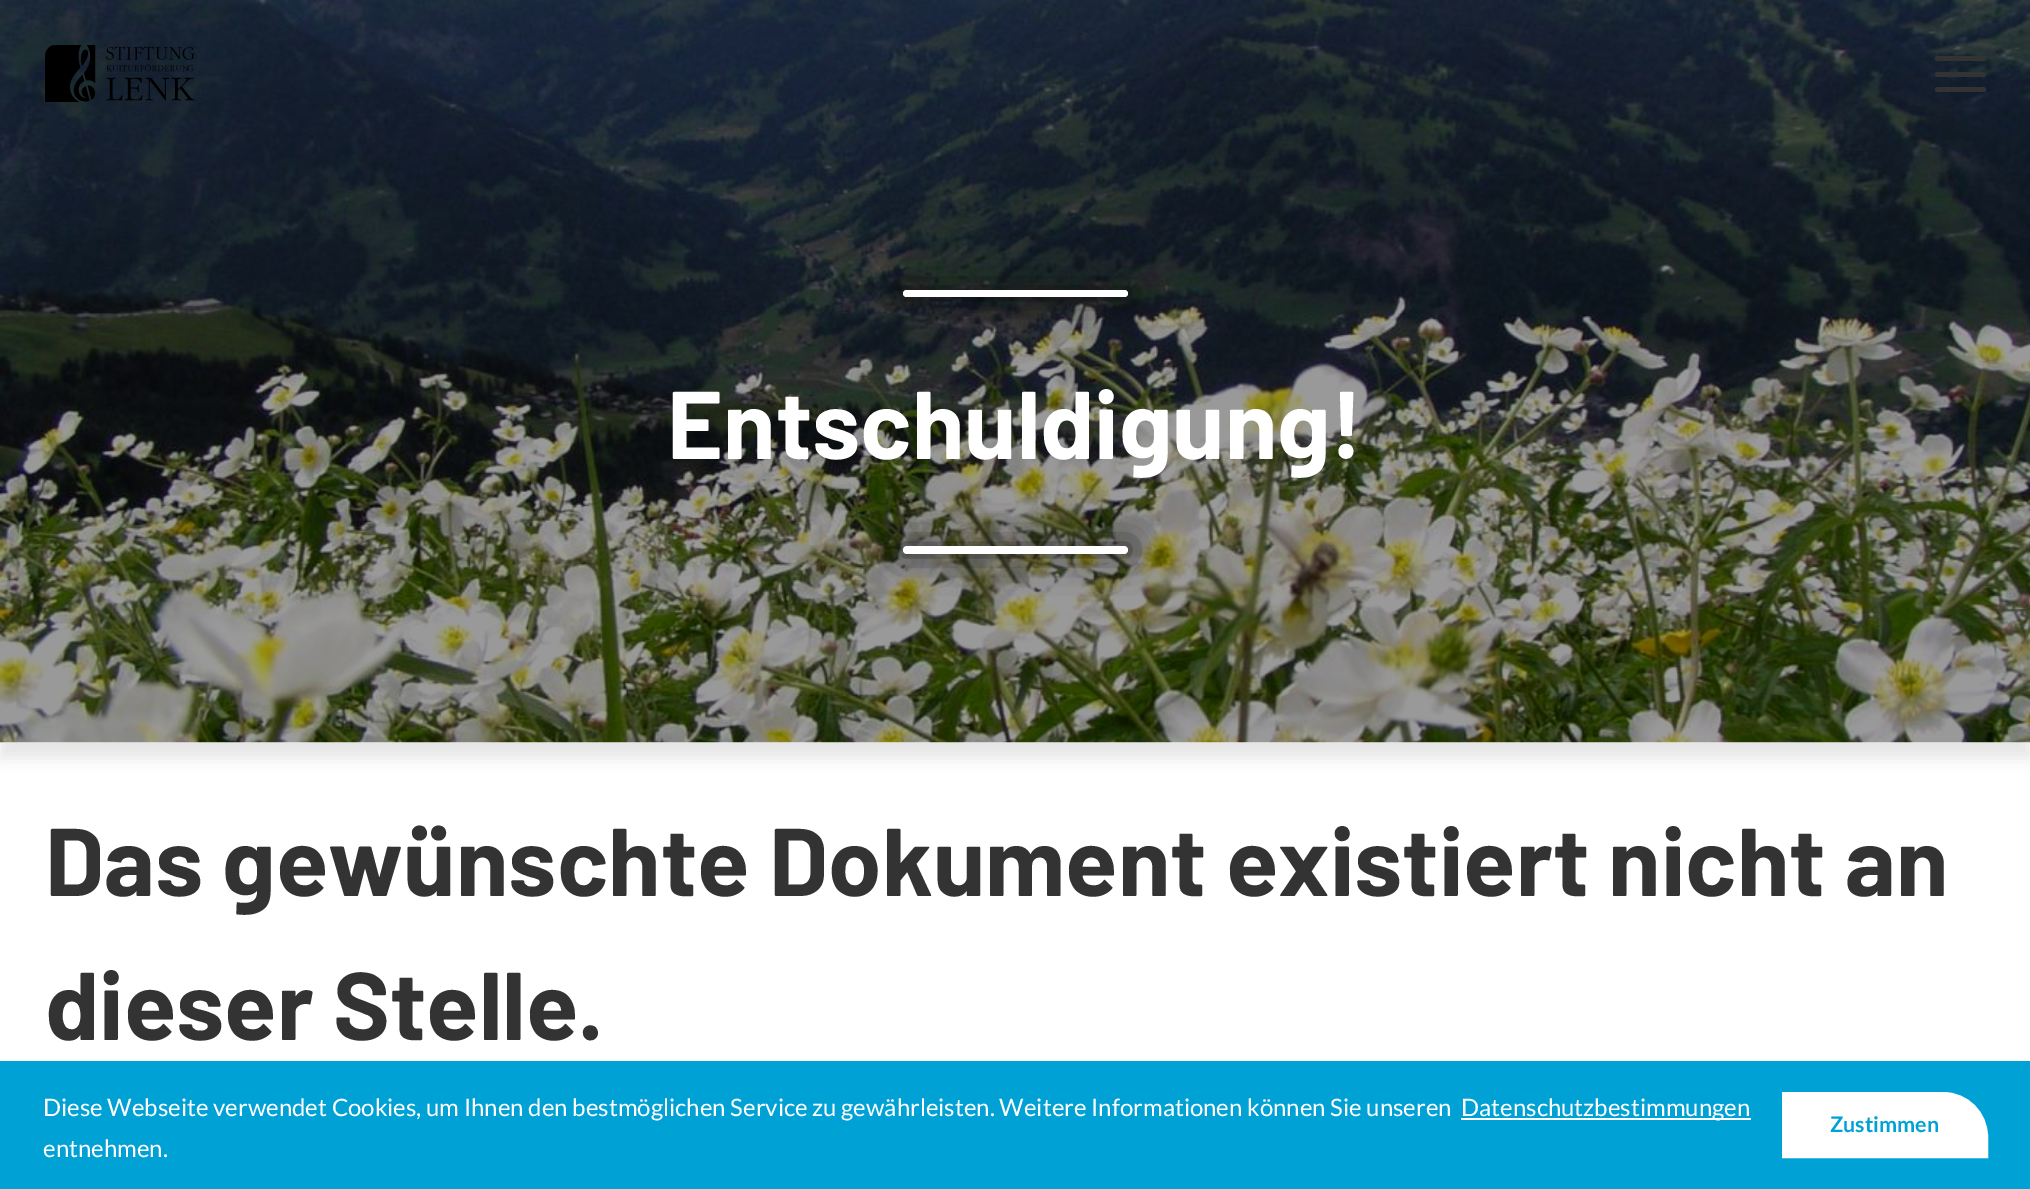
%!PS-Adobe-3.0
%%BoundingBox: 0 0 2030 1189
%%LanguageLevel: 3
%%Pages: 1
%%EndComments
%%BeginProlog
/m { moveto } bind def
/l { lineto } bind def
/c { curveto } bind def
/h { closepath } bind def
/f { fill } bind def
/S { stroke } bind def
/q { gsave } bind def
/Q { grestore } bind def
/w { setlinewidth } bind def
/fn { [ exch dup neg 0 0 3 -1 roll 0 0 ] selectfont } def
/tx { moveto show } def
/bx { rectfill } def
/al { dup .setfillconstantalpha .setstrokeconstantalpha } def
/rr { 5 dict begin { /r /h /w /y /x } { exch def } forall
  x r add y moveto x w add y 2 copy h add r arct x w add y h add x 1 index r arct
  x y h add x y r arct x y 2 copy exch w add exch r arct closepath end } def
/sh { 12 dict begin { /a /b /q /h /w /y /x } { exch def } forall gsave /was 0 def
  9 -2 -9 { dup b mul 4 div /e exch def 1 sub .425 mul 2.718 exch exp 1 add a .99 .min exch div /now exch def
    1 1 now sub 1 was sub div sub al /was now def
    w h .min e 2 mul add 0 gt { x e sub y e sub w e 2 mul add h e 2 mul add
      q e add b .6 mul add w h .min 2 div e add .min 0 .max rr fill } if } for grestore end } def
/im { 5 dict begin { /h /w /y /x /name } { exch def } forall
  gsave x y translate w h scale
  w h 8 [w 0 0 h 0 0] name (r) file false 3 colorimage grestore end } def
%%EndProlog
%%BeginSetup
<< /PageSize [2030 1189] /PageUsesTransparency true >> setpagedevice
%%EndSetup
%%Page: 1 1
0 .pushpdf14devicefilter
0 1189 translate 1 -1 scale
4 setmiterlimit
1 setgray
0 0 2030 1189 bx
0 setgray
0 -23 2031 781 0 7.5 0.1 sh
0.933 setgray
0 742 2030 1 bx
(image1.raw) 0 0 2030 743 im
(image0.raw) 45 45 150 57 im
0.2 setgray
1935 56 51 5 2.5 rr f
1935 72 51 5 2.5 rr f
1935 87 51 5 2.5 rr f
0 setgray
903 290 225 7 3.5 19 0.7 sh
1 setgray
903 290 225 7 3.5 rr f
/Barlow-Bold 96 fn
(Entschuldigung!) 667 459 tx
0 setgray
903 546 225 8 4 19 0.7 sh
1 setgray
903 546 225 8 4 rr f
0.2 setgray
(Das gewünschte Dokument existiert nicht an) 45 896 tx
(dieser Stelle.) 45 1040 tx
0 0.631 0.835 setrgbcolor
0 1061 2030 128 bx
/Lato-Regular 24 fn
1 setgray
(Diese Webseite verwendet Cookies, um Ihnen den bestmöglichen Service zu gewährleisten. Weitere Informationen können Sie unseren) 43 1116 tx
1461 1118 290 2 bx
(Datenschutzbestimmungen) 1461 1116 tx
(entnehmen.) 43 1157 tx
1783.5 1093.5 m 1943 1093.5 l 1967 1093.5 1986.5 1113 1986.5 1137 c 1986.5 1156.5 l 1783.5 1156.5 l h q f Q
3 w
S
/Lato-Bold 21.5 fn
0 0.631 0.835 setrgbcolor
(Zustimmen) 1830 1132 tx
.poppdf14devicefilter showpage
%%EOF
